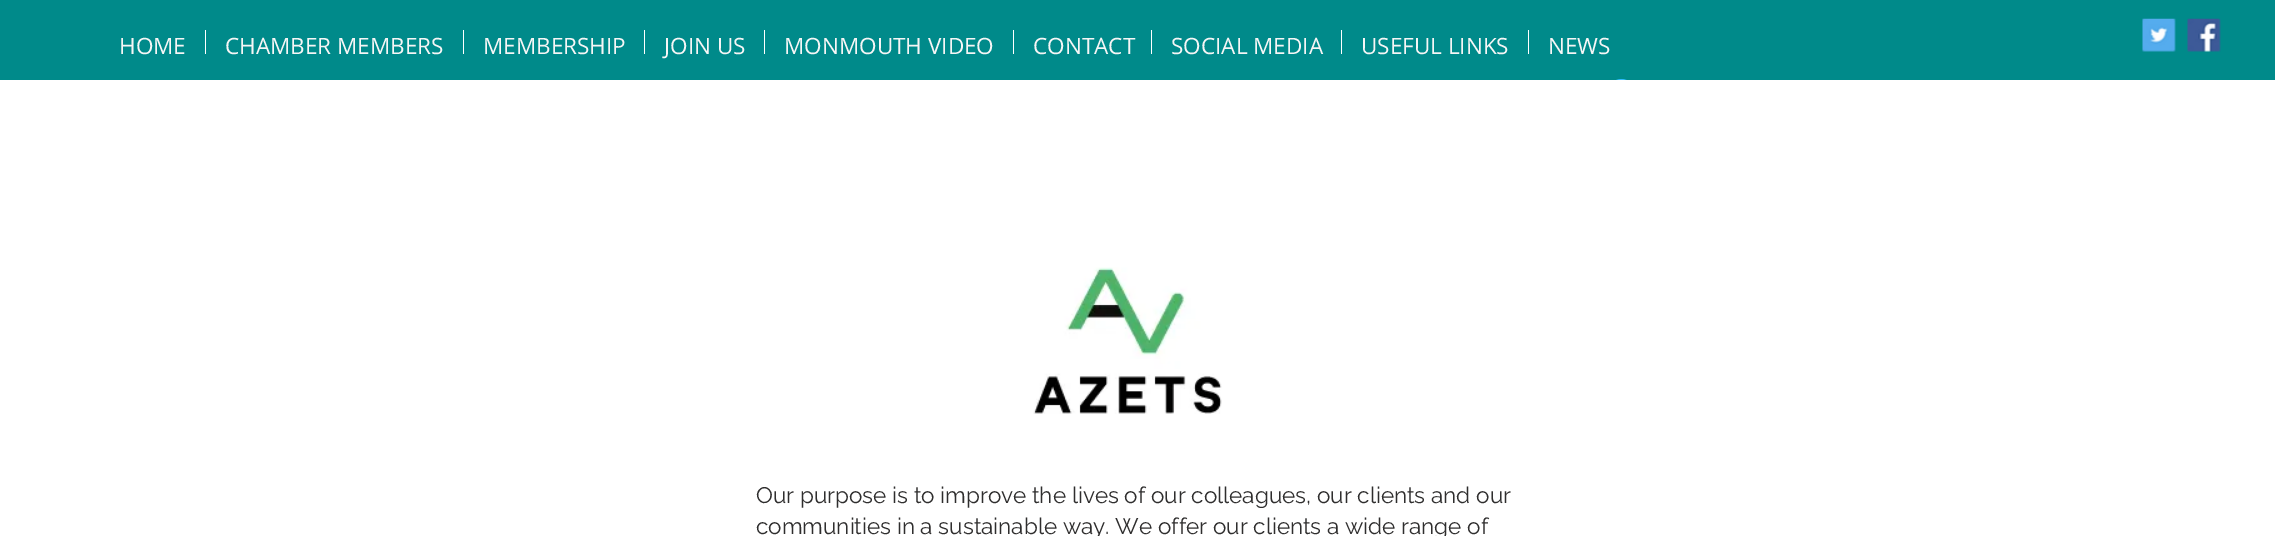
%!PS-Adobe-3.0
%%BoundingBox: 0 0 2275 536
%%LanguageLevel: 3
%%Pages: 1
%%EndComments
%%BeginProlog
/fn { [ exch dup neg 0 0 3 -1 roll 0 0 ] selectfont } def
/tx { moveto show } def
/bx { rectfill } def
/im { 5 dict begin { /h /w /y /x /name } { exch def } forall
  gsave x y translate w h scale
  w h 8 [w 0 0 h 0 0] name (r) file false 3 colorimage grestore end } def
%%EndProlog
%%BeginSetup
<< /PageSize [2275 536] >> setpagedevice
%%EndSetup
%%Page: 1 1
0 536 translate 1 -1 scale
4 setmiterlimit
1 setgray
0 0 2275 536 bx
0 0.541 0.541 setrgbcolor
0 0 2275 80 bx
(image0.raw) 1616 79 11 1 im
/OpenSans-Regular 22.5 fn
0.965 setgray
(HOME) 119 54 tx
1 setgray
205 30 1 24 bx
0.965 setgray
(CHAMBER MEMBERS) 225 54 tx
1 setgray
463 30 1 24 bx
0.965 setgray
(MEMBERSHIP) 483 54 tx
1 setgray
644 30 1 24 bx
0.965 setgray
(JOIN US) 664 54 tx
1 setgray
764 30 1 24 bx
0.965 setgray
(MONMOUTH VIDEO) 784 54 tx
1 setgray
1013 30 1 24 bx
0.965 setgray
(CONTACT) 1033 54 tx
1 setgray
1151 30 1 24 bx
0.965 setgray
(SOCIAL MEDIA) 1171 54 tx
1 setgray
1341 30 1 24 bx
0.965 setgray
(USEFUL LINKS) 1361 54 tx
1 setgray
1528 30 1 24 bx
0.965 setgray
(NEWS) 1548 54 tx
(image1.raw) 2142 18 34 34 im
(image2.raw) 2187 18 34 34 im
(image3.raw) 1033 267 189 147 im
/Raleway-Regular 22.5 fn
0.184 0.18 0.18 setrgbcolor
(Our purpose is to improve the lives of our colleagues, our clients and our) 756 503 tx
(communities in a sustainable way. We offer our clients a wide range of) 756 534 tx
showpage
%%EOF
